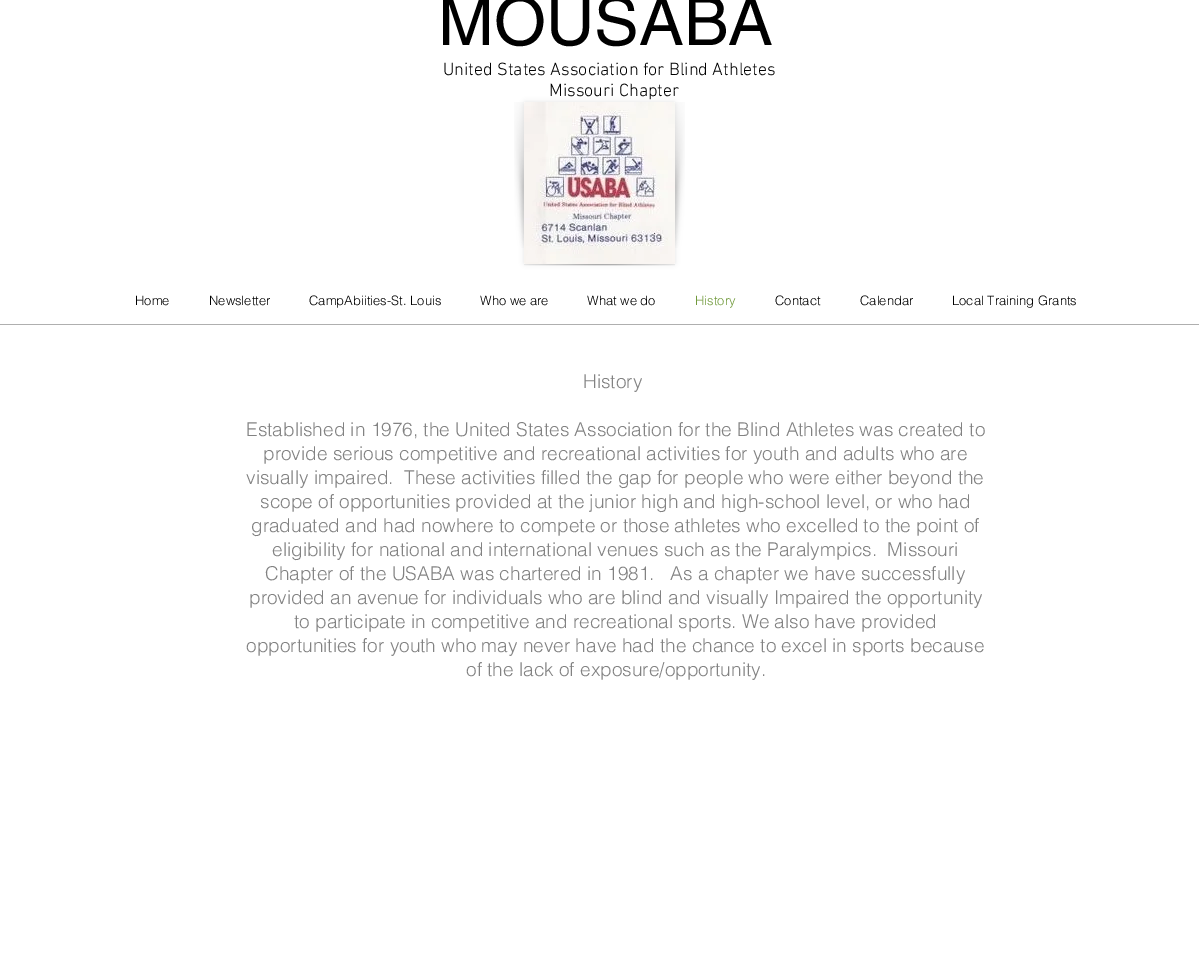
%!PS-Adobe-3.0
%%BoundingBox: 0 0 1199 960
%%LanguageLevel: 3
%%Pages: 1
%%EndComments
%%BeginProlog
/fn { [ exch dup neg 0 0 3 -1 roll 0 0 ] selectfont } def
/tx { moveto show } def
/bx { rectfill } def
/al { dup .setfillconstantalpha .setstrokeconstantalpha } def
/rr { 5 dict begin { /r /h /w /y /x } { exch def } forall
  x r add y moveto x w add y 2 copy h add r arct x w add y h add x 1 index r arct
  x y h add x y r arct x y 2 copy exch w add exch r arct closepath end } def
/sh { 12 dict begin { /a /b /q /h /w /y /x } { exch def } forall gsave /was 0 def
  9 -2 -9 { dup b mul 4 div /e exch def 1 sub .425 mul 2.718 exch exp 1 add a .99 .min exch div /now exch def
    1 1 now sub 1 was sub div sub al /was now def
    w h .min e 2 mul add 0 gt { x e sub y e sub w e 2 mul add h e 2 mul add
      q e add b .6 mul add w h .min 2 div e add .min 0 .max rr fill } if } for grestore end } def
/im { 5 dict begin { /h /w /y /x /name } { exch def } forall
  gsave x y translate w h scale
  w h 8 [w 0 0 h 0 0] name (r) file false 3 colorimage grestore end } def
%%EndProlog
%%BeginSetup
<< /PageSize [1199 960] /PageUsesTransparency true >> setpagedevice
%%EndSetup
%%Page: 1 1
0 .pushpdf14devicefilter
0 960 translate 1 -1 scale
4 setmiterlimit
1 setgray
0 0 1199 960 bx
/helvetica-Regular 67 fn
0 setgray
(MOUSABA) 438 45 tx
/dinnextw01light-Light 18 fn
(United States Association for Blind Athletes) 443 75 tx
(Missouri Chapter) 549 96 tx
524 102 151 162 1 2.5 0.1 sh
(image0.raw) 524 102 151 162 im
(image1.raw) 524 264 151 2 im
(image2.raw) 514 102 10 146 im
(image3.raw) 675 102 10 146 im
/helvetica-Light 13 fn
(Home) 135 305 tx
(Newsletter) 209 305 tx
(CampAbiities-St. Louis) 309 305 tx
(Who we are) 480 305 tx
(What we do) 587 305 tx
0.443 0.604 0.235 setrgbcolor
(History) 695 305 tx
0 setgray
(Contact) 775 305 tx
(Calendar) 860 305 tx
(Local Training Grants) 952 305 tx
0.686 setgray
0 324 1199 1 bx
/helvetica-Light 19 fn
0.51 setgray
(History) 583 388 tx
(Established in 1976, the United States Association for the Blind Athletes was created to) 246 436 tx
(provide serious competitive and recreational activities for youth and adults who are) 263 460 tx
(visually impaired.  These activities filled the gap for people who were either beyond the) 246 484 tx
(scope of opportunities provided at the junior high and high-school level, or who had) 260 508 tx
(graduated and had nowhere to compete or those athletes who excelled to the point of) 251 532 tx
(eligibility for national and international venues such as the Paralympics.  Missouri) 272 556 tx
(Chapter of the USABA was chartered in 1981.   As a chapter we have successfully) 265 580 tx
(provided an avenue for individuals who are blind and visually Impaired the opportunity) 249 604 tx
(to participate in competitive and recreational sports. We also have provided) 294 628 tx
(opportunities for youth who may never have had the chance to excel in sports because) 246 652 tx
(of the lack of exposure/opportunity.) 466 676 tx
.poppdf14devicefilter showpage
%%EOF
